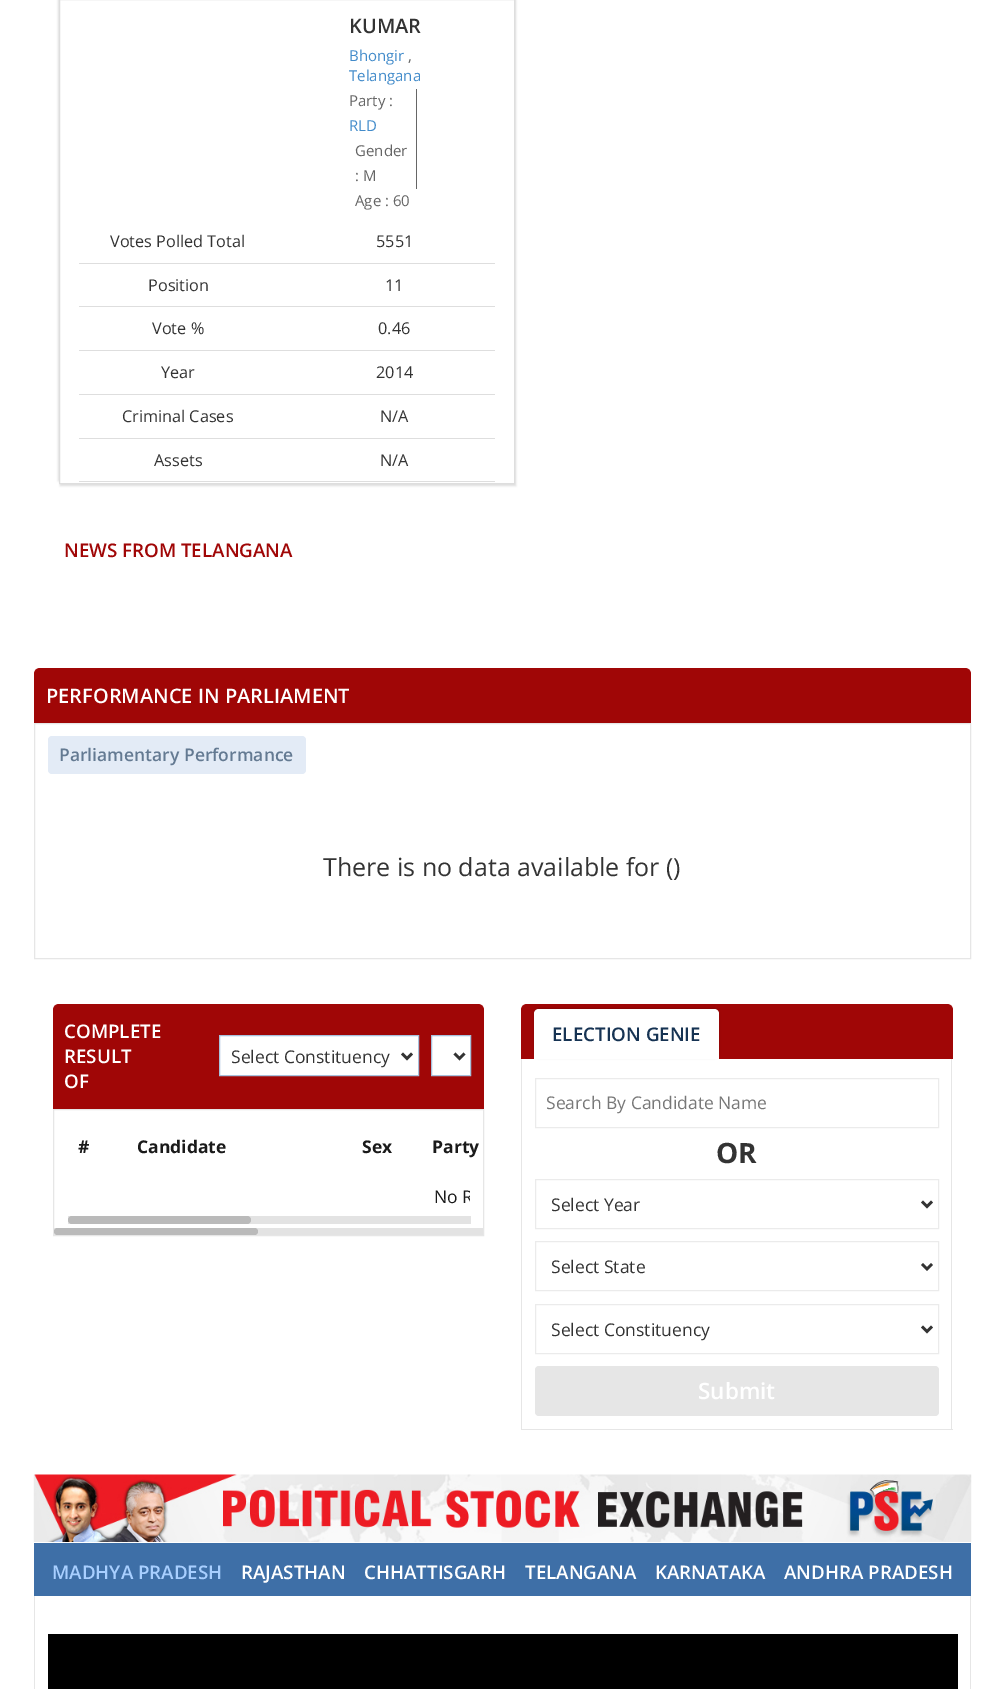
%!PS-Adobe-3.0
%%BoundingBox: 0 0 1003 1689
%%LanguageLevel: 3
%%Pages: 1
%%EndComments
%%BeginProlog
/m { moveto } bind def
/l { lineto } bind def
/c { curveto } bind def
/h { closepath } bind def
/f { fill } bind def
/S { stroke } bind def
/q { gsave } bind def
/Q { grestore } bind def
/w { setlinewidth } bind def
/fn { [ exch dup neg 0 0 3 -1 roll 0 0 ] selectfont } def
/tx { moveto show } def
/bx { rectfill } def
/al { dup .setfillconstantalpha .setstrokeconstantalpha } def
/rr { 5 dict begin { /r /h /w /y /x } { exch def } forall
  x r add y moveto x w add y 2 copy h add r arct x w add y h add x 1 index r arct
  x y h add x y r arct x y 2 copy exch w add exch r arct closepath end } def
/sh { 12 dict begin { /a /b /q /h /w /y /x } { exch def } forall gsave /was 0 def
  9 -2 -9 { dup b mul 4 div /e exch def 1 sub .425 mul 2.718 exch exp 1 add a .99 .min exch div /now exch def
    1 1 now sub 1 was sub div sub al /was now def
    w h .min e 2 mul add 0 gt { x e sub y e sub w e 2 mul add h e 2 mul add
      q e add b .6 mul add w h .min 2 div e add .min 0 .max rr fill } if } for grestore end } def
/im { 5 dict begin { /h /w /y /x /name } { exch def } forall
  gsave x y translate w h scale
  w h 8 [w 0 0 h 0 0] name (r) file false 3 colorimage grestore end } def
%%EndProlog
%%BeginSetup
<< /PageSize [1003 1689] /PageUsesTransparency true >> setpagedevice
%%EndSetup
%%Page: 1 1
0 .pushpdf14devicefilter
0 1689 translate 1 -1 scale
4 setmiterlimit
1 setgray
0 0 1003 1689 bx
q
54 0 m 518 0 l 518 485 l 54 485 l h 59 -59 m 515 -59 l 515 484 l 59 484 l h eoclip newpath
0.871 setgray
58 -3 456 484 0 1 1 sh
Q
q
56 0 m 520 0 l 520 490 l 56 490 l h 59 -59 m 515 -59 l 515 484 l 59 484 l h eoclip newpath
0.871 setgray
60 -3 456 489 0 1 1 sh
Q
0.871 setgray
59.5 -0.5 455 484 rectstroke
/OpenSans-SemiBold 20 fn
0.2 setgray
(KUMAR) 349 33 tx
/OpenSans-Regular 15 fn
0.259 0.545 0.792 setrgbcolor
(Bhongir) 349 61 tx
0.396 setgray
(,) 408 61 tx
0.259 0.545 0.792 setrgbcolor
(Telangana) 349 81 tx
0.4 setgray
416 89 1 100 bx
0.396 setgray
(Party :) 349 106 tx
0.259 0.545 0.792 setrgbcolor
(RLD) 349 131 tx
0.396 setgray
(Gender) 355 156 tx
(: M) 355 181 tx
(Age : 60) 355 206 tx
0.871 setgray
79 263 416 1 bx
/OpenSans-Regular 16.25 fn
0.2 setgray
(Votes Polled Total) 110 247 tx
(5551) 376 247 tx
0.871 setgray
79 306 416 1 bx
0.2 setgray
(Position) 148 291 tx
(11) 385 291 tx
0.871 setgray
79 350 416 1 bx
0.2 setgray
(Vote %) 152 334 tx
(0.46) 378 334 tx
0.871 setgray
79 394 416 1 bx
0.2 setgray
(Year) 161 378 tx
(2014) 376 378 tx
0.871 setgray
79 438 416 1 bx
0.2 setgray
(Criminal Cases) 122 422 tx
(N/A) 380 422 tx
0.871 setgray
79 481 416 1 bx
0.2 setgray
(Assets) 154 466 tx
(N/A) 380 466 tx
/OpenSans-SemiBold 18.75 fn
0.627 0.024 0.024 setrgbcolor
(NEWS FROM TELANGANA) 64 557 tx
40 668 m 965 668 l 968.5 668 971 670.5 971 674 c 971 723 l 34 723 l 34 674 l 34 670.5 36.5 668 40 668 c h f
/OpenSans-SemiBold 20 fn
1 setgray
(PERFORMANCE IN PARLIAMENT) 46 703 tx
0.902 setgray
34.5 723.5 936 235 rectstroke
0.89 0.922 0.965 setrgbcolor
48 736 258 38 4 rr f
/OpenSans-SemiBold 17.5 fn
0.392 0.478 0.573 setrgbcolor
(Parliamentary Performance) 59 761 tx
/OpenSans-Regular 25 fn
0.2 setgray
(There is no data available for \(\)) 323 876 tx
0.627 0.024 0.024 setrgbcolor
59 1004 m 478 1004 l 481.5 1004 484 1006.5 484 1010 c 484 1109 l 53 1109 l 53 1010 l 53 1006.5 55.5 1004 59 1004 c h f
/OpenSans-SemiBold 18.75 fn
1 setgray
(COMPLETE) 64 1038 tx
(RESULT) 64 1063 tx
(OF) 64 1088 tx
219.5 1035.5 m 418.5 1035.5 l 418.5 1075.5 l 219.5 1075.5 l h q f Q
0.655 0.757 0.863 setrgbcolor
S
0.2 setgray
2.5 w
402 1053.5 m 407 1058.5 l 412 1053.5 l S
/OpenSans-Regular 17.5 fn
(Select Constituency) 231 1063 tx
1 setgray
431.5 1035.5 m 470.5 1035.5 l 470.5 1075.5 l 431.5 1075.5 l h q f Q
0.655 0.757 0.863 setrgbcolor
1 w
S
0.2 setgray
2.5 w
454.5 1053.5 m 459.5 1058.5 l 464.5 1053.5 l S
0.902 setgray
1 w
53.5 1109.5 430 126 rectstroke
/OpenSans-Bold 17.5 fn
0.102 setgray
(#) 78 1153 tx
(Candidate) 137 1153 tx
(Sex) 362 1153 tx
(Party) 432 1153 tx
q
66 1173 404 50 rectclip
/OpenSans-Regular 17.5 fn
(No R) 434 1203 tx
Q
0.89 setgray
68 1216 403 8 bx
0.729 setgray
68 1216 183 8 4 rr f
0.627 0.024 0.024 setrgbcolor
527 1004 m 947 1004 l 950.5 1004 953 1006.5 953 1010 c 953 1059 l 521 1059 l 521 1010 l 521 1006.5 523.5 1004 527 1004 c h f
0 setgray
534 1008 185 50 5 1 0.2 sh
1 setgray
539 1009 m 714 1009 l 717 1009 719 1011 719 1014 c 719 1059 l 534 1059 l 534 1014 l 534 1011 536 1009 539 1009 c h f
/OpenSans-SemiBold 18.75 fn
0.086 0.2 0.325 setrgbcolor
(ELECTION GENIE) 552 1041 tx
0.902 setgray
951 1059 1 371 bx
521 1429 432 1 bx
521 1059 1 371 bx
0.922 setgray
535.5 1078.5 403 49 rectstroke
/OpenSans-Regular 17.5 fn
0.471 setgray
(Search By Candidate Name) 546 1109 tx
/OpenSans-Bold 28 fn
0.2 setgray
(OR) 716 1163 tx
0.922 setgray
535.5 1179.5 403 49 rectstroke
0.2 setgray
2.5 w
922 1201.5 m 927 1206.5 l 932 1201.5 l S
/OpenSans-Regular 17.5 fn
(Select Year) 551 1211 tx
0.922 setgray
1 w
535.5 1241.5 403 49 rectstroke
0.2 setgray
2.5 w
922 1264 m 927 1269 l 932 1264 l S
(Select State) 551 1273 tx
0.922 setgray
1 w
535.5 1304.5 403 49 rectstroke
0.2 setgray
2.5 w
922 1326.5 m 927 1331.5 l 932 1326.5 l S
(Select Constituency) 551 1336 tx
0.902 setgray
535 1366 404 50 4 rr f
/OpenSans-SemiBold 22.5 fn
1 setgray
(Submit) 698 1399 tx
(image0.raw) 33 1474 939 68 im
0.243 0.435 0.655 setrgbcolor
34 1543 937 53 bx
/OpenSans-SemiBold 18.75 fn
0.659 0.812 1 setrgbcolor
(MADHYA PRADESH) 52 1579 tx
1 setgray
(RAJASTHAN) 241 1579 tx
(CHHATTISGARH) 364 1579 tx
(TELANGANA) 525 1579 tx
(KARNATAKA) 655 1579 tx
(ANDHRA PRADESH) 784 1579 tx
0.902 setgray
970 1596 1 93 bx
34 1596 1 93 bx
0 setgray
48 1634 910 55 bx
0.89 setgray
54 1228 429 7 bx
0.729 setgray
54 1228 204 7 3.5 rr f
.poppdf14devicefilter showpage
%%EOF
